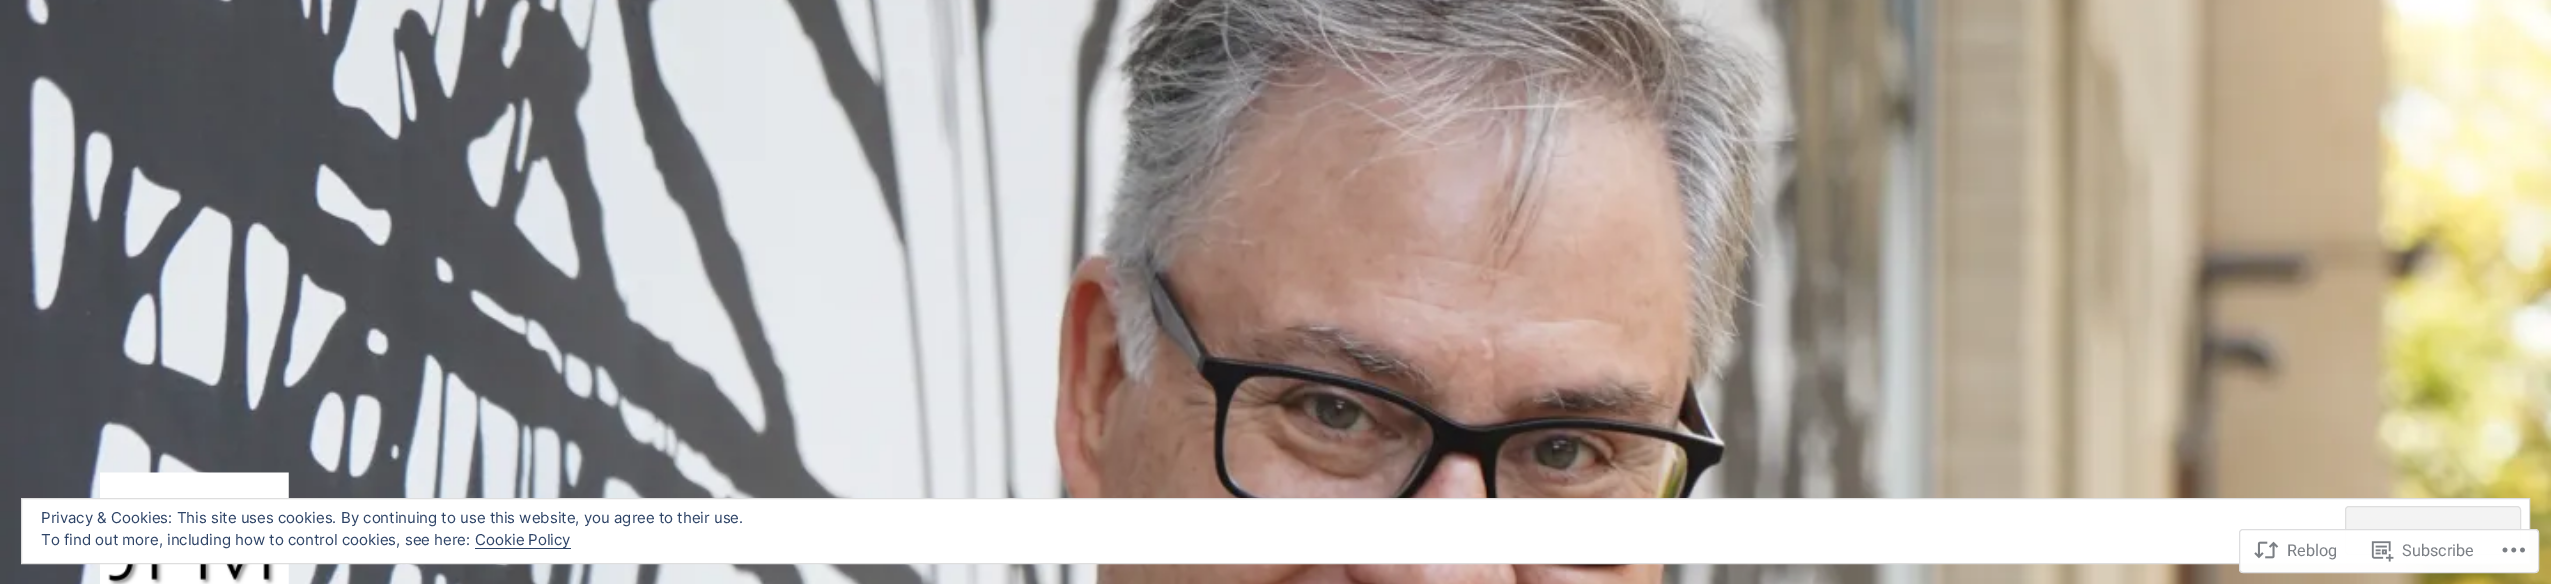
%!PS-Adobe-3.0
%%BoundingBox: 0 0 2551 584
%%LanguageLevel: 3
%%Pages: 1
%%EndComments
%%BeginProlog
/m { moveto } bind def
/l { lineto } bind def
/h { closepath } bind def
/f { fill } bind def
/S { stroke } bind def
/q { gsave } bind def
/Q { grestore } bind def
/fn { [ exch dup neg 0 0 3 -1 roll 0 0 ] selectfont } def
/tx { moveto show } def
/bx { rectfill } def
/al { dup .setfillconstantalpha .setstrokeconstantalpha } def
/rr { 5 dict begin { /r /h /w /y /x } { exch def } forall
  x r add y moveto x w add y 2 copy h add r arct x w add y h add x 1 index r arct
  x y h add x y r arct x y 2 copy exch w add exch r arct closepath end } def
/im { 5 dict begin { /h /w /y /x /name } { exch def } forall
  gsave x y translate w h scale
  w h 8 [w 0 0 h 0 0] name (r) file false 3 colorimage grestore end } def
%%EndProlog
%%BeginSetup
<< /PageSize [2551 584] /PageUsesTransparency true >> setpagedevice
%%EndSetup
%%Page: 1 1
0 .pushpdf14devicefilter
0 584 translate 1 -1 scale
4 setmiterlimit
1 setgray
0 0 2551 584 bx
(image0.raw) 0 0 2551 584 im
(image1.raw) 100 472 189 112 im
21.5 498.5 m 2529.5 498.5 l 2529.5 563.5 l 21.5 563.5 l h q f Q
0.871 setgray
S
/Inter-Regular 15 fn
0.18 0.267 0.404 setrgbcolor
(Privacy & Cookies: This site uses cookies. By continuing to use this website, you agree to their use.) 41 523 tx
0.953 setgray
2345.5 506.5 175 48 3.5 rr q f Q
0.871 setgray
S
0.18 0.267 0.404 setrgbcolor
(To find out more, including how to control cookies, see here:) 41 545 tx
475 548 96 1 bx
(Cookie Policy) 475 545 tx
0.98 al
1 setgray
2239 529 300 44 4 rr f
0.863 0.863 0.871 setrgbcolor
2239.5 529.5 299 43 3.5 rr S
1 al
(image2.raw) 2254 541 25 18 im
/Roboto-Regular 16.25 fn
0.482 0.498 0.522 setrgbcolor
(Reblog) 2287 556 tx
(image3.raw) 2371 541 23 21 im
(Subscribe) 2402 556 tx
(image4.raw) 2502 547 23 6 im
.poppdf14devicefilter showpage
%%EOF
